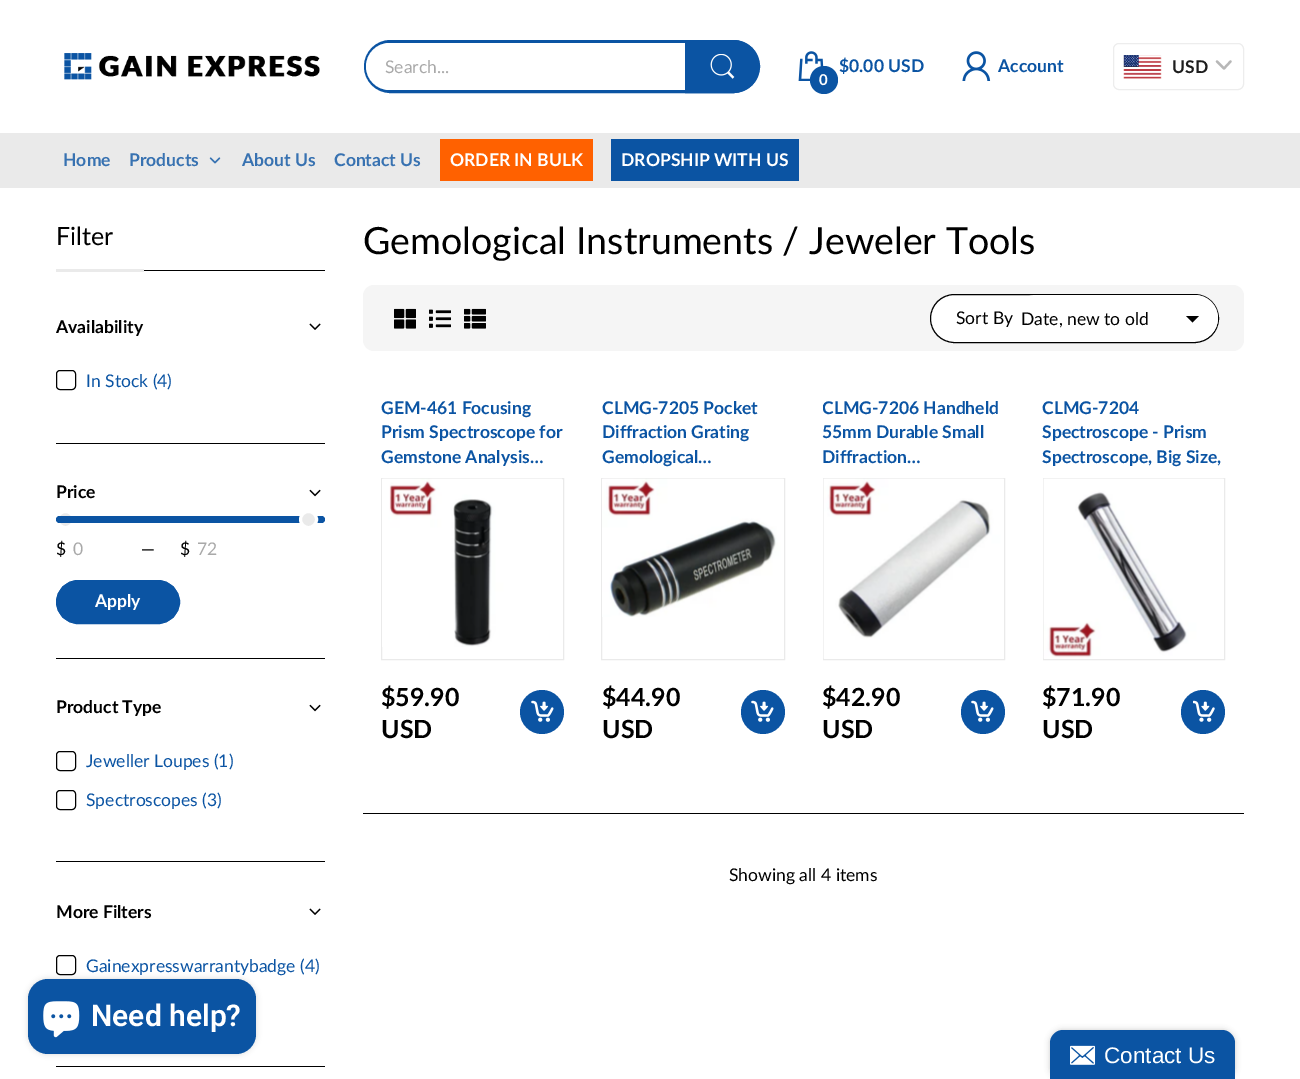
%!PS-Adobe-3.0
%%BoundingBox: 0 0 1300 1079
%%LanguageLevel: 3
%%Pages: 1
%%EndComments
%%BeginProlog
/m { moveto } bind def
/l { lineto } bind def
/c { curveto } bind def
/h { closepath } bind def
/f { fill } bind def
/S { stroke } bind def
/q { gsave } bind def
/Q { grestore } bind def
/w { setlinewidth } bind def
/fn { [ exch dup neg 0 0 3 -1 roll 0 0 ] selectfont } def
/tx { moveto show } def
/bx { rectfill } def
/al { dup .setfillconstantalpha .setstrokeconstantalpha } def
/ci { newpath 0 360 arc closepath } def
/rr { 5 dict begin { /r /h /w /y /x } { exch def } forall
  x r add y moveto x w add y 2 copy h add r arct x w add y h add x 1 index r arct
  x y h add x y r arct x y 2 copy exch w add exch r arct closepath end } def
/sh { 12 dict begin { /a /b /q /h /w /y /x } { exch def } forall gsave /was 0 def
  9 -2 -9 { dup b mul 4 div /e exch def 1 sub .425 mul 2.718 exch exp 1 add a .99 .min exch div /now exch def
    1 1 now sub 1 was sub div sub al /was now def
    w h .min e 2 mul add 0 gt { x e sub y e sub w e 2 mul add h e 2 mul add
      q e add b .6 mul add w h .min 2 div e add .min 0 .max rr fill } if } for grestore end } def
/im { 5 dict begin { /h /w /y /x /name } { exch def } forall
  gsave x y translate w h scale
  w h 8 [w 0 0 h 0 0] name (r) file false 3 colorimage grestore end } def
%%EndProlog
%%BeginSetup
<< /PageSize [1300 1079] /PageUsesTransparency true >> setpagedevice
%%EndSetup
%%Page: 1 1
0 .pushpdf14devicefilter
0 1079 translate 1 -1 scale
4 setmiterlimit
1 setgray
0 0 1300 1079 bx
(image0.raw) 64 53 256 27 im
0.043 0.329 0.639 setrgbcolor
3 w
365.5 41.5 392 50 25 rr S
1 setgray
366 43 390 47 23.5 rr f
/Lato-Regular 17.5 fn
0.663 setgray
(Search...) 385 73 tx
0.043 0.329 0.639 setrgbcolor
685.5 40.5 m 733.5 40.5 l 748 40.5 759.5 52 759.5 66.5 c 759.5 81 748 92.5 733.5 92.5 c 685.5 92.5 l h q f Q
1 w
S
(image1.raw) 710 54 25 25 im
/Lato-Bold 17.5 fn
($0.00 USD) 839 72 tx
(image2.raw) 798 51 26 30 im
824 80 14 ci f
/Lato-Bold 15 fn
1 setgray
(0) 819 85 tx
(image3.raw) 962 51 29 30 im
/Lato-Bold 17.5 fn
0.043 0.329 0.639 setrgbcolor
(Account) 998 72 tx
0.929 setgray
1113.5 43.5 130 46 5.5 rr S
(image4.raw) 1123 55 39 24 im
0.118 setgray
(USD) 1172 73 tx
0.718 setgray
2.3 w
1 setlinecap
1 setlinejoin
1217 61.5 m 1224 68.5 l 1230.5 61.5 l S
0.918 setgray
0 133 1300 55 bx
0.22 0.447 0.694 setrgbcolor
(Home) 63 166 tx
(Products) 129 166 tx
(image5.raw) 209 157 12 7 im
(About Us) 242 166 tx
(Contact Us) 334 166 tx
1 0.38 0 setrgbcolor
440 139 153 42 bx
1 setgray
(ORDER IN BULK) 450 166 tx
0.043 0.329 0.639 setrgbcolor
611 139 188 42 bx
1 setgray
(DROPSHIP WITH US) 621 166 tx
0 setgray
144 270 181 1 bx
/Lato-Regular 25 fn
(Filter) 56 245 tx
0.918 setgray
56 269 88 3 bx
0 setgray
56 443 269 1 bx
/Lato-Bold 17.5 fn
(Availability) 56 333 tx
(image6.raw) 309 323 12 7 im
1 w
0 setlinecap
0 setlinejoin
56.5 370.5 19 19 3.5 rr S
/Lato-Regular 17.5 fn
0.043 0.329 0.639 setrgbcolor
(In Stock \(4\)) 86 387 tx
0 setgray
56 658 269 1 bx
/Lato-Bold 17.5 fn
(Price) 56 498 tx
(image7.raw) 309 489 12 8 im
0.918 setgray
65.5 519.5 8 ci q f Q
1 setgray
3 w
S
0.043 0.329 0.639 setrgbcolor
56 516 269 7 3.5 rr f
0.918 setgray
308.5 519.5 8 ci q f Q
1 setgray
S
/Lato-Regular 17.5 fn
0 setgray
($) 56 555 tx
0.663 setgray
(0) 73 555 tx
0 setgray
(—) 141 555 tx
($) 180 555 tx
0.663 setgray
(72) 197 555 tx
0.043 0.329 0.639 setrgbcolor
56.5 580.5 123 43 21.5 rr q f Q
1 w
S
/Lato-Bold 17.5 fn
1 setgray
(Apply) 95 607 tx
0 setgray
56 861 269 1 bx
(Product Type) 56 713 tx
(image7.raw) 309 704 12 8 im
56.5 751.5 19 19 3.5 rr S
/Lato-Regular 17.5 fn
0.043 0.329 0.639 setrgbcolor
(Jeweller Loupes \(1\)) 86 767 tx
0 setgray
56.5 790.5 19 19 3.5 rr S
0.043 0.329 0.639 setrgbcolor
(Spectroscopes \(3\)) 86 806 tx
0 setgray
56 1066 269 1 bx
/Lato-Bold 17.5 fn
(More Filters) 56 918 tx
(image6.raw) 309 908 12 7 im
56.5 955.5 19 19 3.5 rr S
/Lato-Regular 17.5 fn
0.043 0.329 0.639 setrgbcolor
(Gainexpresswarrantybadge \(4\)) 86 972 tx
/Lato-Regular 37.5 fn
0 setgray
(Gemological Instruments / Jeweler Tools) 363 254 tx
0.961 setgray
363 285 881 66 11 rr f
(image8.raw) 394 308 22 21 im
(image9.raw) 429 309 22 19 im
(image10.raw) 464 308 22 21 im
1 setgray
930.5 294.5 288 48 24 rr q f Q
0 setgray
S
/Lato-Regular 17.5 fn
(Sort By) 956 324 tx
1 setgray
1013 295 205 46 23 rr f
0 setgray
(Date, new to old) 1021 325 tx
1186 316 m 1192.5 322.5 l 1199 316 l h eofill
/Lato-Bold 17.5 fn
0.043 0.329 0.639 setrgbcolor
(GEM-461 Focusing) 381 414 tx
(Prism Spectroscope for) 381 438 tx
(Gemstone Analysis…) 381 463 tx
0.918 setgray
381.5 478.5 182 181 rectstroke
(image11.raw) 382 478 180 169 im
/Lato-Bold 25 fn
0 setgray
($59.90) 381 706 tx
(USD) 381 738 tx
0.043 0.329 0.639 setrgbcolor
542 712 22 ci f
(image12.raw) 531 700 23 22 im
/Lato-Bold 17.5 fn
(CLMG-7205 Pocket) 602 414 tx
(Diffraction Grating) 602 438 tx
(Gemological…) 602 463 tx
0.918 setgray
601.5 478.5 183 181 rectstroke
(image13.raw) 602 478 182 139 im
/Lato-Bold 25 fn
0 setgray
($44.90) 602 706 tx
(USD) 602 738 tx
0.043 0.329 0.639 setrgbcolor
763 712 22 ci f
(image12.raw) 751 700 23 22 im
q
823 395 182 74 rectclip
/Lato-Bold 17.5 fn
(CLMG-7206 Handheld) 822 414 tx
Q
/Lato-Bold 17.5 fn
(55mm Durable Small) 822 438 tx
(Diffraction…) 822 463 tx
0.918 setgray
823.5 478.5 181 181 rectstroke
(image14.raw) 823 478 181 181 im
/Lato-Bold 25 fn
0 setgray
($42.90) 822 706 tx
(USD) 822 738 tx
0.043 0.329 0.639 setrgbcolor
983 712 22 ci f
(image12.raw) 971 700 23 22 im
/Lato-Bold 17.5 fn
(CLMG-7204) 1042 414 tx
(Spectroscope - Prism) 1042 438 tx
(Spectroscope, Big Size,) 1042 463 tx
0.918 setgray
1043.5 478.5 181 181 rectstroke
(image15.raw) 1043 478 181 181 im
/Lato-Bold 25 fn
0 setgray
($71.90) 1042 706 tx
(USD) 1042 738 tx
0.043 0.329 0.639 setrgbcolor
1203 712 22 ci f
(image16.raw) 1193 700 22 22 im
0 setgray
363 813 881 1 bx
/Lato-Regular 17.5 fn
(Showing all 4 items) 729 881 tx
28 979 228 75 20 3 0.15 sh
0.043 0.329 0.639 setrgbcolor
28 979 228 75 20 rr f
(image17.raw) 43 1001 37 37 im
/Roboto-SemiBold 30 fn
1 setgray
(Need help?) 91 1026 tx
0 setgray
1050 1030 185 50 13 3 0.2 sh
0.043 0.329 0.639 setrgbcolor
1063 1030 m 1222 1030 l 1229 1030 1235 1036 1235 1043 c 1235 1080 l 1050 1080 l 1050 1043 l 1050 1036 1056 1030 1063 1030 c h f
(image18.raw) 1070 1045 26 20 im
/LiberationSans-Regular 22.5 fn
1 setgray
(Contact Us) 1104 1063 tx
.poppdf14devicefilter showpage
%%EOF
